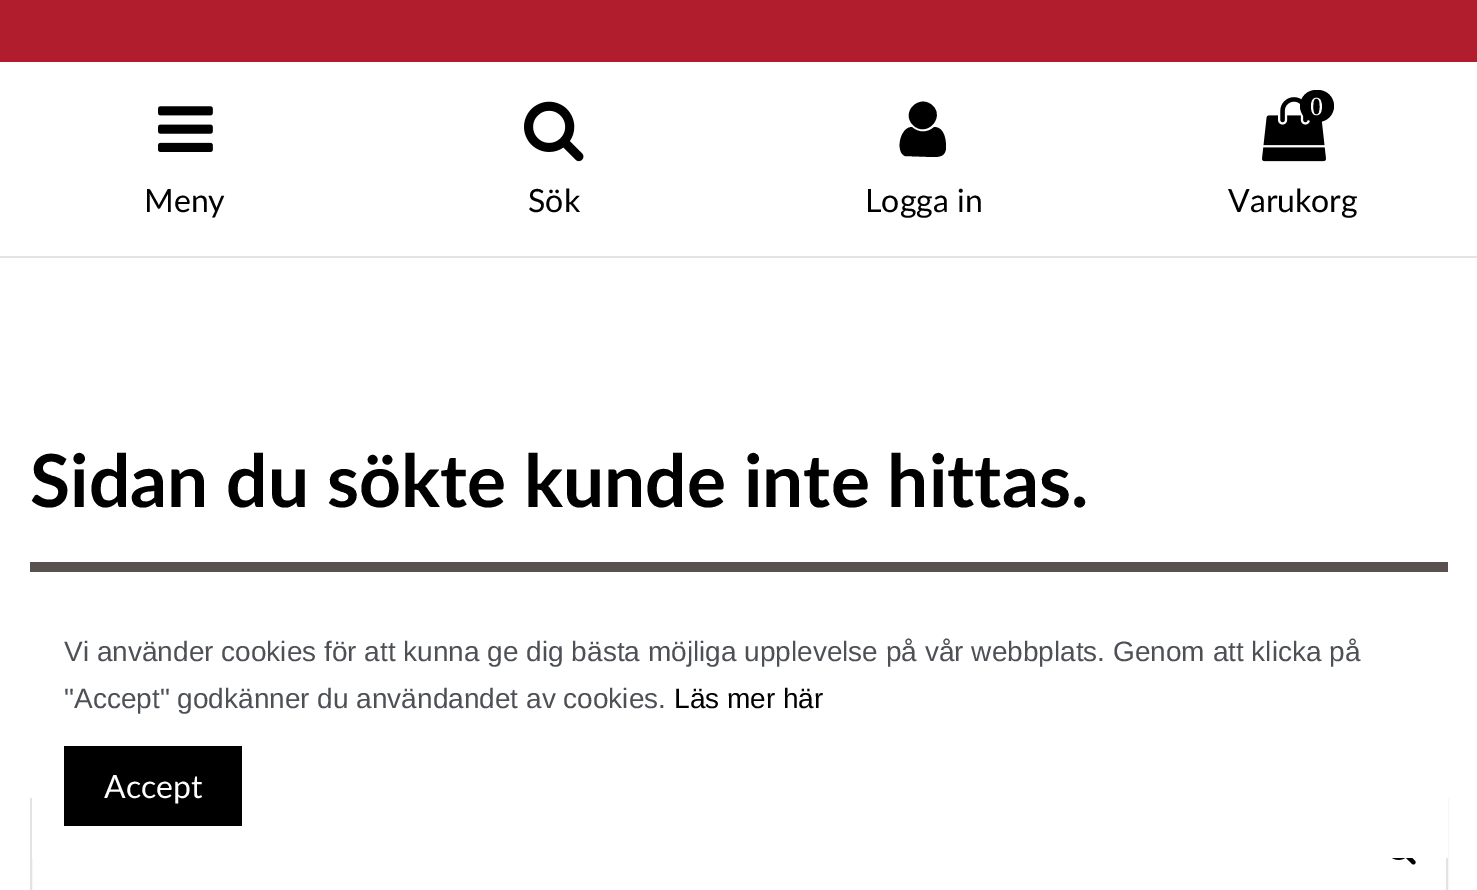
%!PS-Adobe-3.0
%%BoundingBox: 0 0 1477 890
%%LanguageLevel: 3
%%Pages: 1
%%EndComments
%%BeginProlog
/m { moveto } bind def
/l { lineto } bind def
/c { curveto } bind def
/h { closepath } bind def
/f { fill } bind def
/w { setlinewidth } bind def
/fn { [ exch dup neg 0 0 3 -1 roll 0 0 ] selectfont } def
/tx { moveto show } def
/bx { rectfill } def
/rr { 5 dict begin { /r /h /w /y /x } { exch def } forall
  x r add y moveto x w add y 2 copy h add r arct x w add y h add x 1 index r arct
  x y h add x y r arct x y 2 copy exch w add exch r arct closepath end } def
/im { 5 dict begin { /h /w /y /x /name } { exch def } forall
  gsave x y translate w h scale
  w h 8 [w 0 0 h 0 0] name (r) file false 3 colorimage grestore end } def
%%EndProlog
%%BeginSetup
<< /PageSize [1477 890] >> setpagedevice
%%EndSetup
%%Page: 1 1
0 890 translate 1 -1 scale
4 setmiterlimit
1 setgray
0 0 1477 890 bx
0.694 0.114 0.173 setrgbcolor
0 0 1477 62 bx
0.89 setgray
0 256 1477 2 bx
(image0.raw) 158 106 55 46 im
/Lato-Regular 32 fn
0 setgray
(Meny) 144 212 tx
(image1.raw) 524 101 60 61 im
(Sök) 528 212 tx
946 147 m 946 156 940 157 933 157 c 905 156 l 895 152 900 127 912 127 c 918 133 928 133 934 127 c 944 127 946 139 946 147 c h 933 106 m 945 118 926 138 913 125 c 900 112 920 93 933 106 c h f
(Logga in) 865 212 tx
(image2.raw) 1262 97 64 65 im
1300 90 34 32 16 rr f
/LiberationSerif-Regular 26 fn
1 setgray
(0) 1310 115 tx
/Lato-Regular 32 fn
0 setgray
(Varukorg) 1228 212 tx
0.349 0.314 0.314 setrgbcolor
30 562 1418 10 bx
/Lato-Bold 73.1 fn
0 setgray
(Sidan du sökte kunde inte hittas.) 30 507 tx
0.89 setgray
2 w
31 799 1416 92 rectstroke
(image3.raw) 1392 858 24 7 im
1 setgray
32 798 1416 60 bx
/LiberationSans-Regular 28 fn
0.302 0.318 0.337 setrgbcolor
(Vi använder cookies för att kunna ge dig bästa möjliga upplevelse på vår webbplats. Genom att klicka på) 64 661 tx
("Accept" godkänner du användandet av cookies.) 64 708 tx
0 setgray
(Läs mer här) 674 708 tx
64 746 178 80 bx
/Lato-Regular 32 fn
1 setgray
(Accept) 104 798 tx
showpage
%%EOF
